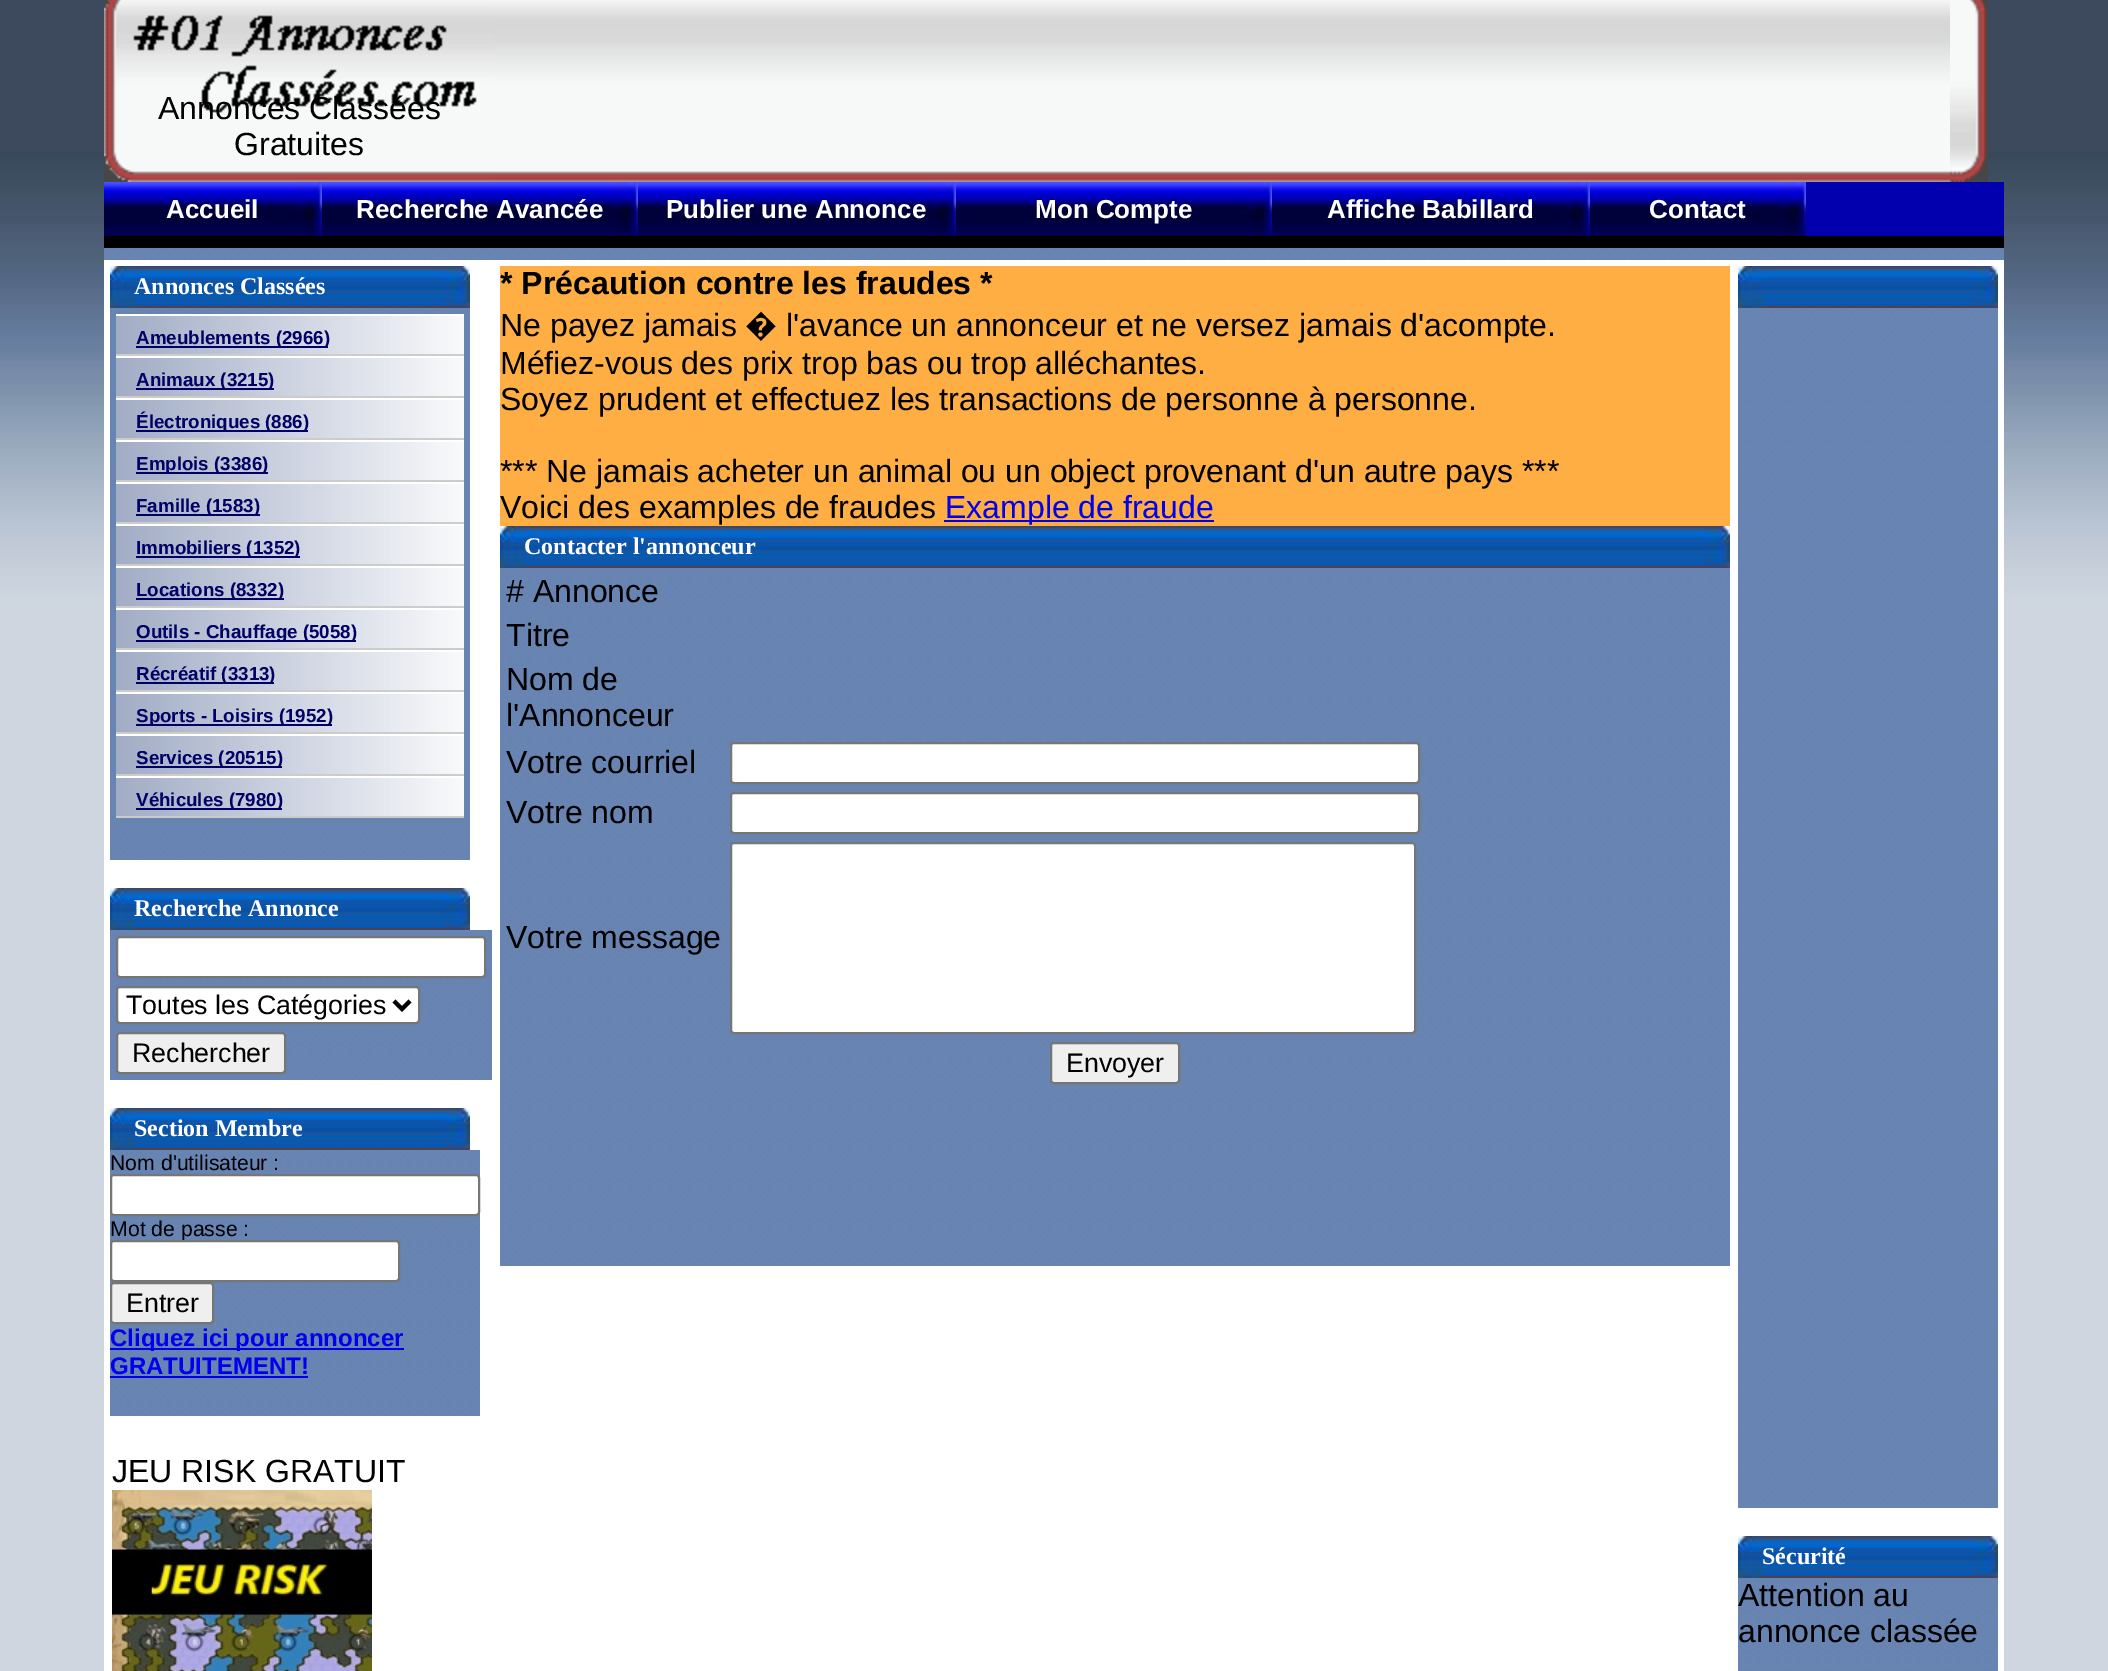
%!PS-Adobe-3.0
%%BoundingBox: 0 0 2108 1671
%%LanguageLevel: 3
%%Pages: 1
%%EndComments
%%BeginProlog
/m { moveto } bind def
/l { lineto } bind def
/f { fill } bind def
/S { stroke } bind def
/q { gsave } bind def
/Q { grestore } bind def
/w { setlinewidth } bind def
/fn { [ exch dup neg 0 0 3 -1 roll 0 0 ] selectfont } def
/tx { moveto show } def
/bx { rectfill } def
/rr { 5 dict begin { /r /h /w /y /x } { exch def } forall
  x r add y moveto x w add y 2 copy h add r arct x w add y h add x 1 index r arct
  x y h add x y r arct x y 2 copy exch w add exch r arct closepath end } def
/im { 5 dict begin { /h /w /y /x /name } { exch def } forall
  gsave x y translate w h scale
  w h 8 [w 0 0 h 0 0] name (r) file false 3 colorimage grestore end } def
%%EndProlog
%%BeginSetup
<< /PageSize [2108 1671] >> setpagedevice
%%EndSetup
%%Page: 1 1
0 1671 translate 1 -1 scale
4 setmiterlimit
1 setgray
0 0 2108 1671 bx
(image0.raw) 0 0 2108 1671 im
(image1.raw) 104 0 390 182 im
/LiberationSans-Regular 32 fn
0 setgray
(Annonces Classées) 158 119 tx
(Gratuites) 234 155 tx
(image2.raw) 494 0 1456 182 im
(image3.raw) 1950 0 38 182 im
0.008 0 0.682 setrgbcolor
1806 182 198 54 bx
0 setgray
104 236 1900 12 bx
(image4.raw) 104 182 218 54 im
/LiberationSans-Bold 26 fn
1 setgray
(Accueil) 166 218 tx
(image5.raw) 322 182 316 54 im
(Recherche Avancée) 356 218 tx
(image6.raw) 638 182 318 54 im
(Publier une Annonce) 666 218 tx
(image5.raw) 956 182 316 54 im
(Mon Compte) 1035 218 tx
(image6.raw) 1272 182 318 54 im
(Affiche Babillard) 1327 218 tx
(image7.raw) 1590 182 216 54 im
(Contact) 1649 218 tx
(image8.raw) 104 248 1900 12 im
104 260 1900 1411 bx
(image9.raw) 110 266 24 42 im
(image10.raw) 134 266 312 42 im
/LiberationSerif-Bold 24 fn
(Annonces Classées) 134 294 tx
(image11.raw) 446 266 24 42 im
(image12.raw) 110 308 360 552 im
(image13.raw) 116 316 348 38 im
116 314 348 2 bx
0.8 setgray
116 354 348 2 bx
0 0 0.4 setrgbcolor
136 346 192 2 bx
/LiberationSans-Bold 18.75 fn
(Ameublements \(2966\)) 136 344 tx
(image13.raw) 116 358 348 38 im
1 setgray
116 356 348 2 bx
0.8 setgray
116 396 348 2 bx
0 0 0.4 setrgbcolor
136 388 138 2 bx
(Animaux \(3215\)) 136 386 tx
(image13.raw) 116 400 348 38 im
1 setgray
116 398 348 2 bx
0.8 setgray
116 438 348 2 bx
0 0 0.4 setrgbcolor
136 430 172 2 bx
(Électroniques \(886\)) 136 428 tx
(image13.raw) 116 442 348 38 im
1 setgray
116 440 348 2 bx
0.8 setgray
116 480 348 2 bx
0 0 0.4 setrgbcolor
136 472 132 2 bx
(Emplois \(3386\)) 136 470 tx
(image13.raw) 116 484 348 38 im
1 setgray
116 482 348 2 bx
0.8 setgray
116 522 348 2 bx
0 0 0.4 setrgbcolor
136 514 124 2 bx
(Famille \(1583\)) 136 512 tx
(image13.raw) 116 526 348 38 im
1 setgray
116 524 348 2 bx
0.8 setgray
116 564 348 2 bx
0 0 0.4 setrgbcolor
136 556 164 2 bx
(Immobiliers \(1352\)) 136 554 tx
(image13.raw) 116 568 348 38 im
1 setgray
116 566 348 2 bx
0.8 setgray
116 606 348 2 bx
0 0 0.4 setrgbcolor
136 598 148 2 bx
(Locations \(8332\)) 136 596 tx
(image13.raw) 116 610 348 38 im
1 setgray
116 608 348 2 bx
0.8 setgray
116 648 348 2 bx
0 0 0.4 setrgbcolor
136 640 220 2 bx
(Outils - Chauffage \(5058\)) 136 638 tx
(image13.raw) 116 652 348 38 im
1 setgray
116 650 348 2 bx
0.8 setgray
116 690 348 2 bx
0 0 0.4 setrgbcolor
136 682 138 2 bx
(Récréatif \(3313\)) 136 680 tx
(image13.raw) 116 694 348 38 im
1 setgray
116 692 348 2 bx
0.8 setgray
116 732 348 2 bx
0 0 0.4 setrgbcolor
136 724 196 2 bx
(Sports - Loisirs \(1952\)) 136 722 tx
(image13.raw) 116 736 348 38 im
1 setgray
116 734 348 2 bx
0.8 setgray
116 774 348 2 bx
0 0 0.4 setrgbcolor
136 766 146 2 bx
(Services \(20515\)) 136 764 tx
(image13.raw) 116 778 348 38 im
1 setgray
116 776 348 2 bx
0.8 setgray
116 816 348 2 bx
0 0 0.4 setrgbcolor
136 808 146 2 bx
(Véhicules \(7980\)) 136 806 tx
(image9.raw) 110 888 24 42 im
(image10.raw) 134 888 312 42 im
/LiberationSerif-Bold 24 fn
1 setgray
(Recherche Annonce) 134 916 tx
(image11.raw) 446 888 24 42 im
(image14.raw) 110 930 382 150 im
117 937 368 40 3 rr q f Q
0.463 setgray
2 w
S
1 setgray
117 987 302 36 3 rr q f Q
0.463 setgray
S
0 setgray
4 w
394 1001 m 402 1009 l 410 1001 l S
/LiberationSans-Regular 26.75 fn
(Toutes les Catégories) 126 1014 tx
0.937 setgray
117 1033 168 40 3 rr q f Q
0.463 setgray
2 w
S
0 setgray
(Rechercher) 132 1062 tx
(image9.raw) 110 1108 24 42 im
(image10.raw) 134 1108 312 42 im
/LiberationSerif-Bold 24 fn
1 setgray
(Section Membre) 134 1136 tx
(image11.raw) 446 1108 24 42 im
(image15.raw) 110 1150 370 266 im
/LiberationSans-Regular 21.25 fn
0 setgray
(Nom d'utilisateur :) 110 1170 tx
1 setgray
111 1175 368 40 3 rr q f Q
0.463 setgray
S
0 setgray
(Mot de passe :) 110 1236 tx
1 setgray
111 1241 288 40 3 rr q f Q
0.463 setgray
S
0.937 setgray
111 1283 102 40 3 rr q f Q
0.463 setgray
S
/LiberationSans-Regular 26.75 fn
0 setgray
(Entrer) 126 1312 tx
0 0 0.933 setrgbcolor
110 1348 294 2 bx
/LiberationSans-Bold 24 fn
(Cliquez ici pour annoncer) 110 1346 tx
(GRATUITEMENT!) 110 1374 tx
110 1376 198 2 bx
/LiberationSans-Regular 32 fn
0 setgray
(JEU RISK GRATUIT) 112 1482 tx
(image16.raw) 112 1490 260 181 im
(image17.raw) 500 568 1230 698 im
0.996 0.682 0.259 setrgbcolor
500 266 1230 260 bx
/LiberationSans-Bold 32 fn
0 setgray
(* Précaution contre les fraudes *) 500 294 tx
/LiberationSans-Regular 32 fn
(Ne payez jamais) 500 336 tx
/NotoSans-Regular 32 fn
(�) 745 336 tx
/LiberationSans-Regular 32 fn
(l'avance un annonceur et ne versez jamais d'acompte.) 786 336 tx
(Méfiez-vous des prix trop bas ou trop alléchantes.) 500 374 tx
(Soyez prudent et effectuez les transactions de personne à personne.) 500 410 tx
(*** Ne jamais acheter un animal ou un object provenant d'un autre pays ***) 500 482 tx
(Voici des examples de fraudes) 500 518 tx
0 0 0.933 setrgbcolor
944 520 270 2 bx
(Example de fraude) 945 518 tx
(image9.raw) 500 526 24 42 im
(image18.raw) 524 526 1182 42 im
/LiberationSerif-Bold 24 fn
1 setgray
(Contacter l'annonceur) 524 554 tx
(image11.raw) 1706 526 24 42 im
(image19.raw) 503 570 1227 510 im
/LiberationSans-Regular 32 fn
0 setgray
(# Annonce) 506 602 tx
(Titre) 506 646 tx
(Nom de) 506 690 tx
(l'Annonceur) 506 726 tx
(Votre courriel) 506 773 tx
1 setgray
731 743 688 40 3 rr q f Q
0.463 setgray
S
0 setgray
(Votre nom) 506 823 tx
1 setgray
731 793 688 40 3 rr q f Q
0.463 setgray
S
0 setgray
(Votre message) 506 948 tx
1 setgray
731 843 684 190 3 rr q f Q
0.463 setgray
S
0.937 setgray
1051 1043 128 40 3 rr q f Q
0.463 setgray
S
/LiberationSans-Regular 26.75 fn
0 setgray
(Envoyer) 1066 1072 tx
(image9.raw) 1738 266 24 42 im
(image20.raw) 1762 266 212 42 im
(image11.raw) 1974 266 24 42 im
(image21.raw) 1738 308 260 1200 im
(image9.raw) 1738 1536 24 42 im
(image20.raw) 1762 1536 212 42 im
/LiberationSerif-Bold 24 fn
1 setgray
(Sécurité) 1762 1564 tx
(image11.raw) 1974 1536 24 42 im
(image22.raw) 1738 1578 260 93 im
/LiberationSans-Regular 32 fn
0 setgray
(Attention au) 1738 1606 tx
(annonce classée) 1738 1642 tx
showpage
%%EOF
